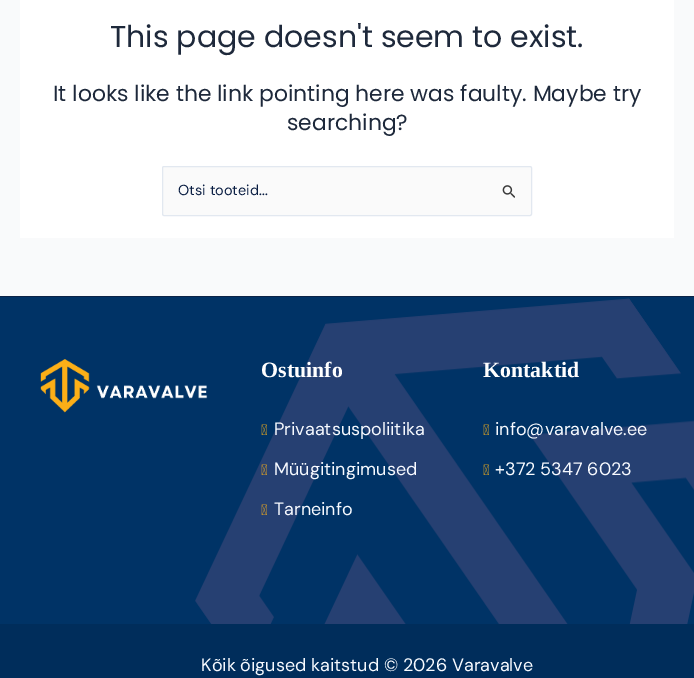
%!PS-Adobe-3.0
%%BoundingBox: 0 0 694 678
%%LanguageLevel: 3
%%Pages: 1
%%EndComments
%%BeginProlog
/f { fill } bind def
/S { stroke } bind def
/q { gsave } bind def
/Q { grestore } bind def
/fn { [ exch dup neg 0 0 3 -1 roll 0 0 ] selectfont } def
/tx { moveto show } def
/bx { rectfill } def
/rr { 5 dict begin { /r /h /w /y /x } { exch def } forall
  x r add y moveto x w add y 2 copy h add r arct x w add y h add x 1 index r arct
  x y h add x y r arct x y 2 copy exch w add exch r arct closepath end } def
/im { 5 dict begin { /h /w /y /x /name } { exch def } forall
  gsave x y translate w h scale
  w h 8 [w 0 0 h 0 0] name (r) file false 3 colorimage grestore end } def
%%EndProlog
%%BeginSetup
<< /PageSize [694 678] >> setpagedevice
%%EndSetup
%%Page: 1 1
0 678 translate 1 -1 scale
4 setmiterlimit
0.976 0.98 0.984 setrgbcolor
0 0 694 678 bx
1 setgray
20 0 654 238 bx
/Poppins-Regular 30 fn
0.118 0.161 0.231 setrgbcolor
(This page doesn't seem to exist.) 110 47 tx
/Poppins-Regular 21.9 fn
(It looks like the link pointing here was faulty. Maybe try) 53 101 tx
(searching?) 287 130 tx
0.98 setgray
162.5 166.5 369 49 1.5 rr q f Q
0.886 0.91 0.941 setrgbcolor
S
/DMSans-Regular 14.5 fn
0.035 0.114 0.259 setrgbcolor
(Otsi tooteid...) 178 195 tx
(image0.raw) 502 185 13 13 im
0.043 0.137 0.278 setrgbcolor
0 296 694 1 bx
0 0.2 0.4 setrgbcolor
0 297 694 327 bx
(image1.raw) 195 298 499 326 im
(image2.raw) 40 359 168 54 im
/LiberationSerif-Bold 21.9 fn
1 setgray
(Ostuinfo) 261 377 tx
(image3.raw) 261 424 6 11 im
/DMSans-Regular 18 fn
0.969 0.98 1 setrgbcolor
(Privaatsuspoliitika) 274 435 tx
(image4.raw) 261 464 6 11 im
(Müügitingimused) 274 475 tx
(image4.raw) 261 504 6 11 im
(Tarneinfo) 274 515 tx
/LiberationSerif-Bold 21.9 fn
1 setgray
(Kontaktid) 483 377 tx
(image3.raw) 483 424 6 11 im
/DMSans-Regular 18 fn
0.969 0.98 1 setrgbcolor
(info@varavalve.ee) 495 435 tx
(image3.raw) 483 464 6 11 im
(+372 5347 6023) 495 475 tx
0 0.176 0.357 setrgbcolor
0 624 694 54 bx
0.969 0.98 1 setrgbcolor
(Kõik õigused kaitstud © 2026 Varavalve) 201 671 tx
showpage
%%EOF
